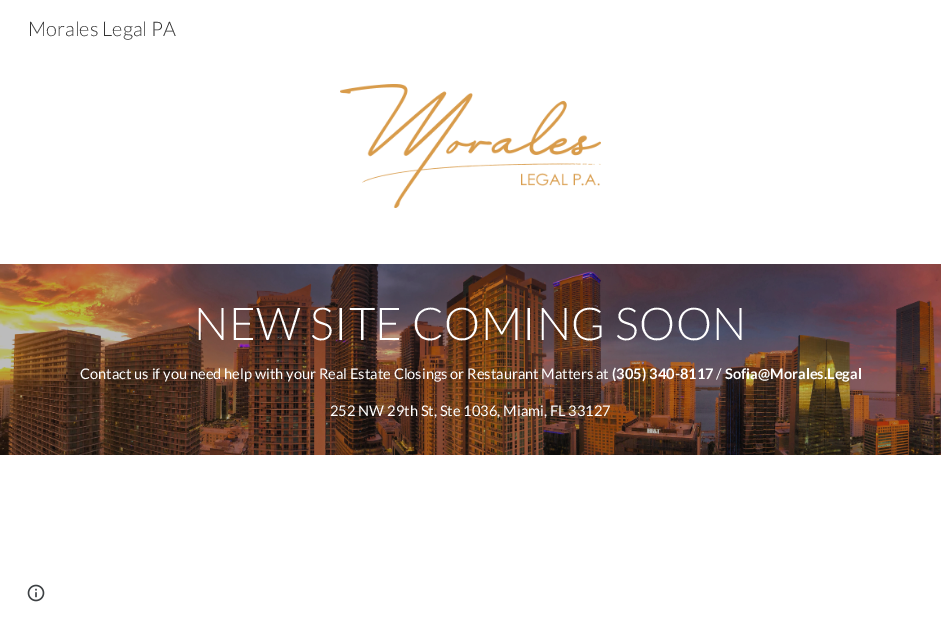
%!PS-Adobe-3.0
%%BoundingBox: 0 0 941 627
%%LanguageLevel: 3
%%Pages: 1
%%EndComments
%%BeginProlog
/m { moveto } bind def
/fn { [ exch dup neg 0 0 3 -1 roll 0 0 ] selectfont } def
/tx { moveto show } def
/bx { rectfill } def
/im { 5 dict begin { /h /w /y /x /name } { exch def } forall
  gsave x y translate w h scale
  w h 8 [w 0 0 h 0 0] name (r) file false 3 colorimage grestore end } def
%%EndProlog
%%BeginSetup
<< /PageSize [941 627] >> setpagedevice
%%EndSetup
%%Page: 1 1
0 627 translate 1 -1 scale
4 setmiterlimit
1 setgray
0 0 941 627 bx
/Lato-Light 20 fn
0.2 setgray
(Morales Legal PA) 28 36 tx
(image0.raw) 340 84 261 124 im
(image1.raw) 0 264 941 191 im
/Lato-Light 45.25 fn
1 setgray
194 340 m 0.5 0 (NEW SITE COMING SOON) ashow
/Lato-Regular 14.65 fn
(Contact us if you need help with your Real Estate Closings or Restaurant Matters at) 80 379 tx
/Lato-Bold 14.65 fn
(\(305\) 340-8117) 612 379 tx
/Lato-Regular 14.65 fn
(/) 716 379 tx
/Lato-Bold 14.65 fn
(Sofia@Morales.Legal) 725 379 tx
/Lato-Regular 14.65 fn
(252 NW 29th St, Ste 1036, Miami, FL 33127) 330 416 tx
(image2.raw) 27 584 18 18 im
showpage
%%EOF
